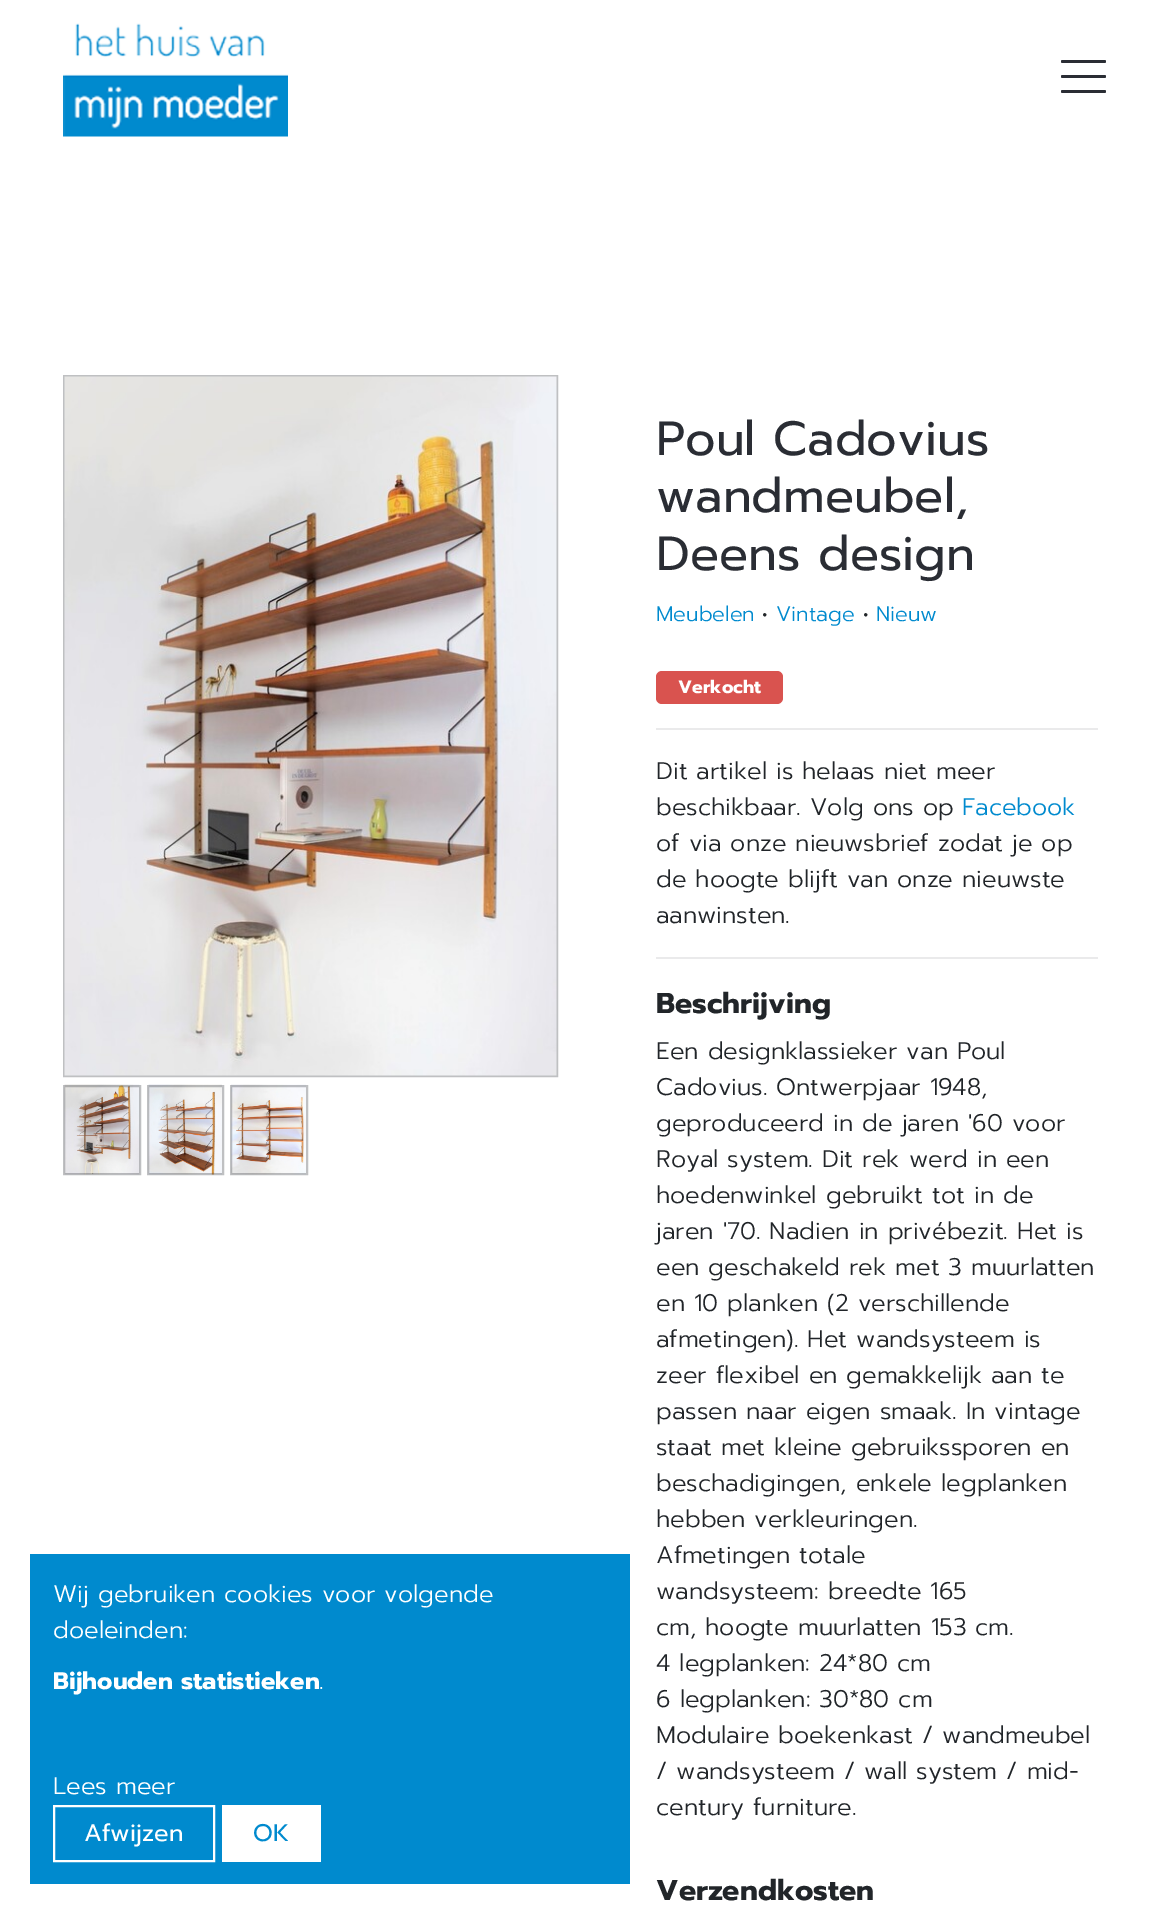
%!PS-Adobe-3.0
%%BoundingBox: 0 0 1161 1913
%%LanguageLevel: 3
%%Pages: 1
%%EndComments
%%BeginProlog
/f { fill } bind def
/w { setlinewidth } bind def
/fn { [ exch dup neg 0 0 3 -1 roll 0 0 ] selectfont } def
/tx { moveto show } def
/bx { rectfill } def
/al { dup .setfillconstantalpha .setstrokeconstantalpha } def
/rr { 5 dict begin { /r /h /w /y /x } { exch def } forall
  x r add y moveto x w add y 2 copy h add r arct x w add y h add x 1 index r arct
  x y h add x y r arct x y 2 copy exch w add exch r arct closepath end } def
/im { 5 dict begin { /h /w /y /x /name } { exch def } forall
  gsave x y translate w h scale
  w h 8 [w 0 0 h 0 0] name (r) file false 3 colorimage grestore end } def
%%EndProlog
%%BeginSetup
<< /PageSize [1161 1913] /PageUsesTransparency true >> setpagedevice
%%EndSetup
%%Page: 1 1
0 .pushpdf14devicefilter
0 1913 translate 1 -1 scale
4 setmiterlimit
1 setgray
0 0 1161 1913 bx
0 0.541 0.808 setrgbcolor
30 1554 600 330 bx
/Prompt-Light 24 fn
1 setgray
(Wij gebruiken cookies voor volgende) 53 1602 tx
(doeleinden:) 53 1638 tx
/Prompt-Bold 24 fn
(Bijhouden statistieken) 53 1689 tx
/Prompt-Light 24 fn
(.) 319 1689 tx
(Lees meer) 53 1794 tx
2 w
54 1806 160 55 rectstroke
/Prompt-Regular 24 fn
(Afwijzen) 84 1841 tx
222 1805 99 57 bx
0 0.541 0.808 setrgbcolor
(OK) 253 1841 tx
(image0.raw) 63 23 225 114 im
0.165 0.176 0.204 setrgbcolor
1061 90 45 3 1.5 rr f
1061 60 45 3 1.5 rr f
1061 75 45 3 1.5 rr f
0.749 0.753 0.761 setrgbcolor
64 376 493 700 rectstroke
(image1.raw) 64 376 493 700 im
(image2.raw) 64 1084 76 91 im
0.3 al
0.165 0.176 0.204 setrgbcolor
64 1086 76 88 rectstroke
1 al
(image3.raw) 148 1084 74 91 im
0.3 al
148 1086 75 88 rectstroke
1 al
(image4.raw) 231 1084 75 91 im
0.3 al
231 1086 76 88 rectstroke
/Prompt-Regular 48 fn
1 al
(Poul Cadovius) 656 455 tx
(wandmeubel,) 656 512 tx
(Deens design) 656 570 tx
/Prompt-Light 21 fn
0 0.541 0.808 setrgbcolor
(Meubelen) 656 621 tx
0.129 0.145 0.161 setrgbcolor
(•) 762 621 tx
0 0.541 0.808 setrgbcolor
(Vintage) 776 621 tx
0.129 0.145 0.161 setrgbcolor
(•) 863 621 tx
0 0.541 0.808 setrgbcolor
(Nieuw) 876 621 tx
0.851 0.325 0.31 setrgbcolor
656 671 127 33 6 rr f
/Prompt-Bold 18 fn
1 setgray
(Verkocht) 678 693 tx
0.918 0.918 0.922 setrgbcolor
656 728 442 2 bx
/Prompt-Light 24 fn
0.129 0.145 0.161 setrgbcolor
(Dit artikel is helaas niet meer) 656 779 tx
(beschikbaar. Volg ons op) 656 815 tx
0 0.541 0.808 setrgbcolor
(Facebook) 962 815 tx
0.129 0.145 0.161 setrgbcolor
(of via onze nieuwsbrief zodat je op) 656 851 tx
(de hoogte blijft van onze nieuwste) 656 887 tx
(aanwinsten.) 656 923 tx
0.918 0.918 0.922 setrgbcolor
656 957 442 2 bx
/Prompt-Bold 28.75 fn
0.129 0.145 0.161 setrgbcolor
(Beschrijving) 656 1013 tx
/Prompt-Light 24 fn
(Een designklassieker van Poul) 656 1059 tx
(Cadovius. Ontwerpjaar 1948,) 656 1095 tx
(geproduceerd in de jaren '60 voor) 656 1131 tx
(Royal system. Dit rek werd in een) 656 1167 tx
(hoedenwinkel gebruikt tot in de) 656 1203 tx
(jaren '70. Nadien in privébezit. Het is) 656 1239 tx
(een geschakeld rek met 3 muurlatten) 656 1275 tx
(en 10 planken \(2 verschillende) 656 1311 tx
(afmetingen\). Het wandsysteem is) 656 1347 tx
(zeer flexibel en gemakkelijk aan te) 656 1383 tx
(passen naar eigen smaak. In vintage) 656 1419 tx
(staat met kleine gebruikssporen en) 656 1455 tx
(beschadigingen, enkele legplanken) 656 1491 tx
(hebben verkleuringen.) 656 1527 tx
(Afmetingen totale) 656 1563 tx
(wandsysteem: breedte 165) 656 1599 tx
(cm, hoogte muurlatten 153 cm.) 656 1635 tx
(4 legplanken: 24*80 cm) 656 1671 tx
(6 legplanken: 30*80 cm) 656 1707 tx
(Modulaire boekenkast / wandmeubel) 656 1743 tx
(/ wandsysteem / wall system / mid-) 656 1779 tx
(century furniture.) 656 1815 tx
/Prompt-Bold 28.75 fn
(Verzendkosten) 656 1900 tx
.poppdf14devicefilter showpage
%%EOF
